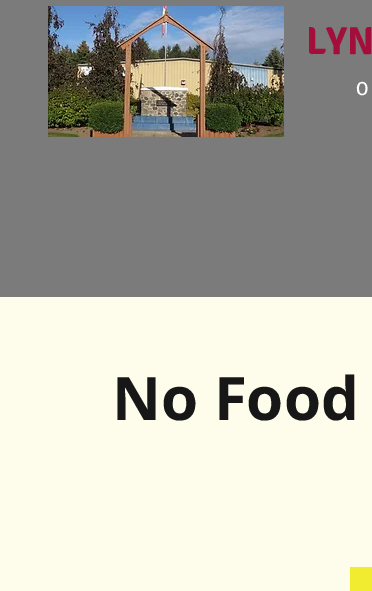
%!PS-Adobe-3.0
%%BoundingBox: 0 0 372 591
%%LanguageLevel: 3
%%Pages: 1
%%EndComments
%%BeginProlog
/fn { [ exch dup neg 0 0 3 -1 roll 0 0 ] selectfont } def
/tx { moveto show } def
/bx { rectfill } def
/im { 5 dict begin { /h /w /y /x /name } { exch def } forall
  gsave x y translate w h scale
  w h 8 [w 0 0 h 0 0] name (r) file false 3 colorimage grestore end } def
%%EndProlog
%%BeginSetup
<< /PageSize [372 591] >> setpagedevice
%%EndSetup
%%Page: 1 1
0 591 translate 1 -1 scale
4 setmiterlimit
0.482 setgray
0 0 372 591 bx
(image0.raw) 48 6 236 131 im
/Signika-Bold 39 fn
0.643 0.055 0.231 setrgbcolor
(LYN) 306 54 tx
/Signika-Regular 19 fn
1 setgray
(O) 356 95 tx
0.996 0.992 0.922 setrgbcolor
0 297 372 294 bx
/OpenSans-Bold 60 fn
0.094 0.09 0.09 setrgbcolor
(No Food) 112 420 tx
0.949 0.925 0.188 setrgbcolor
350 567 22 24 bx
showpage
%%EOF
